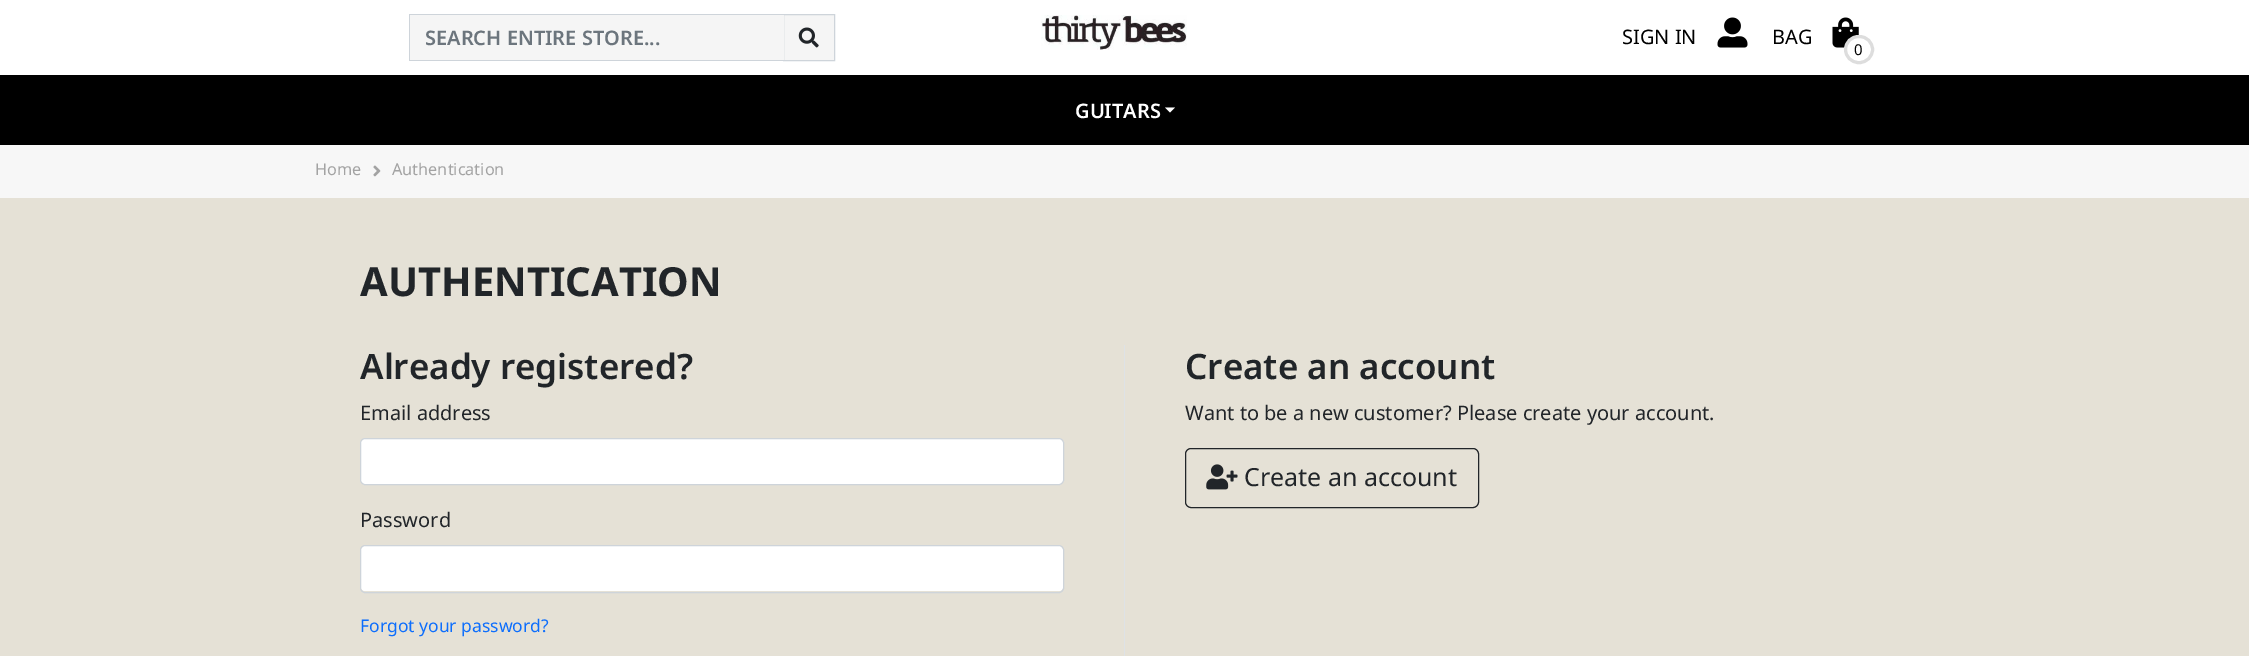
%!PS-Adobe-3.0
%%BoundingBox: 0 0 2249 656
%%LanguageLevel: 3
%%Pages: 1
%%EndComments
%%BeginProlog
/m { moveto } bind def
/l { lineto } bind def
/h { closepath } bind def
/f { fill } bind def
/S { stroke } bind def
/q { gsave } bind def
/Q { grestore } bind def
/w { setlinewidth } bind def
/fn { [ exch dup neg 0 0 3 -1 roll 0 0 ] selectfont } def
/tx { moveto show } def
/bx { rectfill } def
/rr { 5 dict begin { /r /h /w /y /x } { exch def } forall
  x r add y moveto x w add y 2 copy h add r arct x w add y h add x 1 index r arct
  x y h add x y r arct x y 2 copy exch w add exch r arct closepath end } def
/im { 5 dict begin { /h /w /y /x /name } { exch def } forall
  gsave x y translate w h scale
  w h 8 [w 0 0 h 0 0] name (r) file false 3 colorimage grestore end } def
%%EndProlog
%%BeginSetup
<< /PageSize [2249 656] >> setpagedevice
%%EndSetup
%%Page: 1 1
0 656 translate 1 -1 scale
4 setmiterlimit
0.898 0.882 0.839 setrgbcolor
0 0 2249 656 bx
1 setgray
0 0 2249 75 bx
0.961 setgray
783.5 14.5 m 834.5 14.5 l 834.5 60.5 l 783.5 60.5 l h q f Q
0.808 0.831 0.855 setrgbcolor
S
0.961 setgray
410 15 374 45 bx
0.808 0.831 0.855 setrgbcolor
409 14 375 1 bx
409 60 375 1 bx
409 14 1 47 bx
/NotoSans-SemiBold 20 fn
0.424 0.459 0.49 setrgbcolor
(SEARCH ENTIRE STORE...) 425 45 tx
(image0.raw) 798 27 21 21 im
(image1.raw) 1041 15 146 35 im
/NotoSans-Regular 20 fn
0 setgray
(SIGN IN) 1622 44 tx
(image2.raw) 1717 17 31 31 im
(BAG) 1772 44 tx
(image3.raw) 1832 17 27 31 im
1 setgray
1845.5 36.5 27 26 13 rr q f Q
0.867 setgray
3 w
S
/NotoSans-Regular 15 fn
0 setgray
(0) 1854 55 tx
0 75 2249 70 bx
/NotoSans-SemiBold 20 fn
1 setgray
(GUITARS) 1075 118 tx
1165 107.5 m 1175 107.5 l 1170 112.5 l h f
0.969 setgray
0 145 2249 53 bx
/NotoSans-Regular 16.25 fn
0.639 setgray
(Home) 315 175 tx
(image4.raw) 373 165 8 12 im
(Authentication) 392 175 tx
/NotoSans-Bold 40 fn
0.129 0.145 0.161 setrgbcolor
(AUTHENTICATION) 360 296 tx
0.871 0.886 0.902 setrgbcolor
1124 345 1 311 bx
/NotoSans-SemiBold 35 fn
0.129 0.145 0.161 setrgbcolor
(Already registered?) 360 379 tx
/NotoSans-Regular 20 fn
(Email address) 360 420 tx
1 setgray
360.5 438.5 703 46 4.5 rr q f Q
0.808 0.831 0.855 setrgbcolor
1 w
S
0.129 0.145 0.161 setrgbcolor
(Password) 360 527 tx
1 setgray
361 546 702 45 4 rr f
0.808 0.831 0.855 setrgbcolor
360.5 545.5 703 47 4.5 rr S
/NotoSans-Regular 17.5 fn
0.051 0.431 0.992 setrgbcolor
(Forgot your password?) 360 632 tx
/NotoSans-SemiBold 35 fn
0.129 0.145 0.161 setrgbcolor
(Create an account) 1185 379 tx
/NotoSans-Regular 20 fn
(Want to be a new customer? Please create your account.) 1185 420 tx
1185.5 448.5 293 59 5.5 rr S
(image5.raw) 1206 464 32 26 im
/NotoSans-Regular 25 fn
(Create an account) 1244 486 tx
showpage
%%EOF
